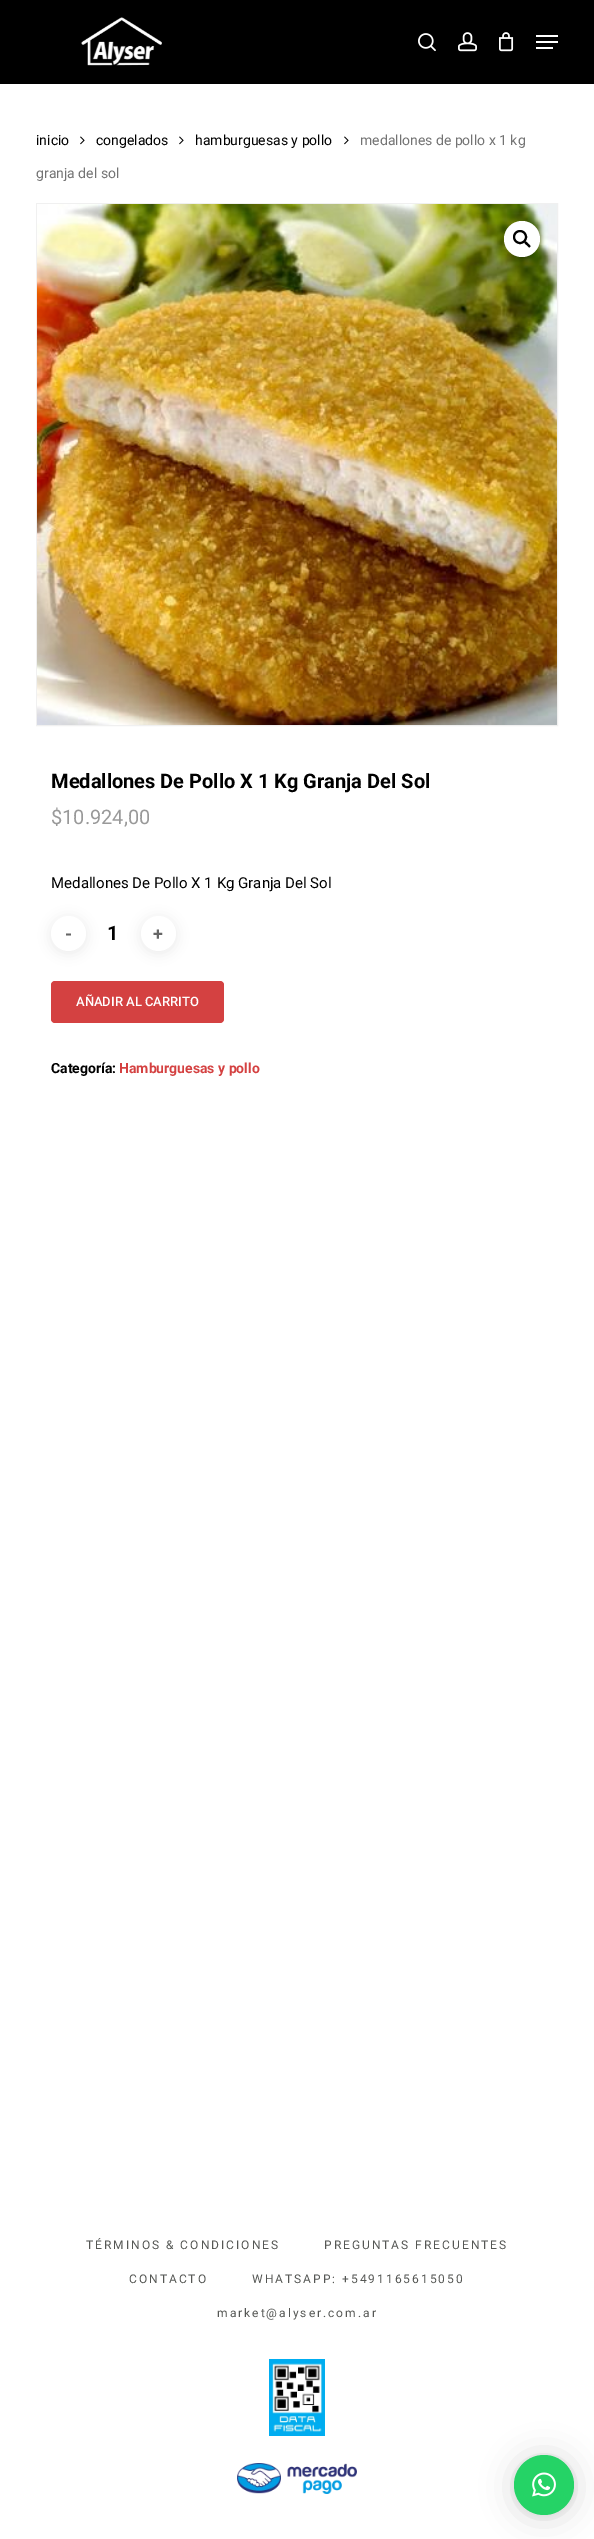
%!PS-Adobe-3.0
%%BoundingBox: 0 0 594 2539
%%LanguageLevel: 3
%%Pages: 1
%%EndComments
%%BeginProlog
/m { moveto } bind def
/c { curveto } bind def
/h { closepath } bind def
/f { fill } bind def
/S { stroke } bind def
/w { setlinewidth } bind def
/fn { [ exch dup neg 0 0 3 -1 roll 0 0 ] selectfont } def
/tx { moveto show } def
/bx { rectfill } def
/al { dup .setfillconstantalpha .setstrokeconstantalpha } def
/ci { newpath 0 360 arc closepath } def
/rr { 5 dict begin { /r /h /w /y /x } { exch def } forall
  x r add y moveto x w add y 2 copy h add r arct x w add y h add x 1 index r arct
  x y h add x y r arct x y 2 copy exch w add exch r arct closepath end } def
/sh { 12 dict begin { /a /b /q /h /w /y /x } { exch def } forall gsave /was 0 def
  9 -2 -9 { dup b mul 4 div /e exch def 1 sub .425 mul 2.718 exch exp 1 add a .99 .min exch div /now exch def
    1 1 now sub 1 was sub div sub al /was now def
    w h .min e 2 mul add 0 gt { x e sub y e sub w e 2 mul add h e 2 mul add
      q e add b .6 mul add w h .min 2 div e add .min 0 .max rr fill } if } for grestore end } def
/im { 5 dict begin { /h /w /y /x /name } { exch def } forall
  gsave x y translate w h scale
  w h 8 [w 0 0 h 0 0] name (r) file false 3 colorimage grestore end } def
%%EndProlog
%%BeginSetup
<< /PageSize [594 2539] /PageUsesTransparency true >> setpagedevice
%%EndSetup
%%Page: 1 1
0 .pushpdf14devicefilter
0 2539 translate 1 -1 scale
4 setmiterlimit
1 setgray
0 0 594 2539 bx
0 setgray
0 0 594 84 bx
(image0.raw) 81 17 81 49 im
(image1.raw) 418 33 18 19 im
(image2.raw) 458 32 19 20 im
(image3.raw) 499 32 15 20 im
1 setgray
536 35 22 2 bx
536 47 17 2 bx
536 41 22 2 bx
/Roboto-Regular 14 fn
0 setgray
(inicio) 36 145 tx
(image4.raw) 80 136 5 9 im
(congelados) 96 145 tx
(image4.raw) 179 136 5 9 im
(hamburguesas y pollo) 195 145 tx
(image4.raw) 344 136 5 9 im
0.451 setgray
(medallones de pollo x 1 kg) 360 145 tx
(granja del sol) 36 178 tx
0.941 setgray
36.5 203.5 521 522 rectstroke
(image5.raw) 37 204 520 521 im
1 setgray
522 239 18 ci f
0 setgray
2 w
520 237 6 ci S
524.5 241.5 m 525.5 240.5 527.5 243 528 243.5 c 528.5 244 531.5 246 530 247 c 529 248.5 527.5 245.5 526.5 245 c 526 244.5 523.5 242.5 524.5 241.5 c h f
/Roboto-Bold 20 fn
(Medallones De Pollo X 1 Kg Granja Del Sol) 51 788 tx
/Roboto-Regular 20 fn
0.6 setgray
($10.924,00) 51 824 tx
/Roboto-Regular 15 fn
0 setgray
(Medallones De Pollo X 1 Kg Granja Del Sol) 51 888 tx
51 918 35 35 17.5 6 0.08 sh
1 setgray
68.5 933.5 17.5 ci f
/Roboto-Bold 18 fn
0.4 setgray
(-) 65 940 tx
/Roboto-Bold 20 fn
0 setgray
(1) 107 940 tx
141 918 35 35 17.5 6 0.08 sh
1 setgray
158.5 933.5 17.5 ci f
/Roboto-Bold 18 fn
0.4 setgray
(+) 153 940 tx
0.831 0.255 0.255 setrgbcolor
51 981 173 42 4 rr f
/Roboto-Medium 13 fn
1 setgray
(AÑADIR AL CARRITO) 76 1006 tx
/Roboto-Bold 14 fn
0 setgray
(Categoría:) 51 1073 tx
0.831 0.255 0.255 setrgbcolor
(Hamburguesas y pollo) 119 1073 tx
/Roboto-Regular 12 fn
0.333 0.341 0.329 setrgbcolor
86 2249 m 2 0 (TÉRMINOS & CONDICIONES) ashow
324 2249 m 2 0 (PREGUNTAS FRECUENTES) ashow
129 2283 m 2 0 (CONTACTO) ashow
252 2283 m 2 0 (WHATSAPP: +5491165615050) ashow
217 2317 m 2 0 (market@alyser.com.ar) ashow
(image6.raw) 269 2359 56 77 im
(image7.raw) 237 2463 120 31 im
0 setgray
514 2457 60 60 30 16 0.16 sh
514 2456 60 60 30 3 0.06 sh
0.145 0.827 0.4 setrgbcolor
544 2485 30 ci f
(image8.raw) 532 2472 24 25 im
.poppdf14devicefilter showpage
%%EOF
